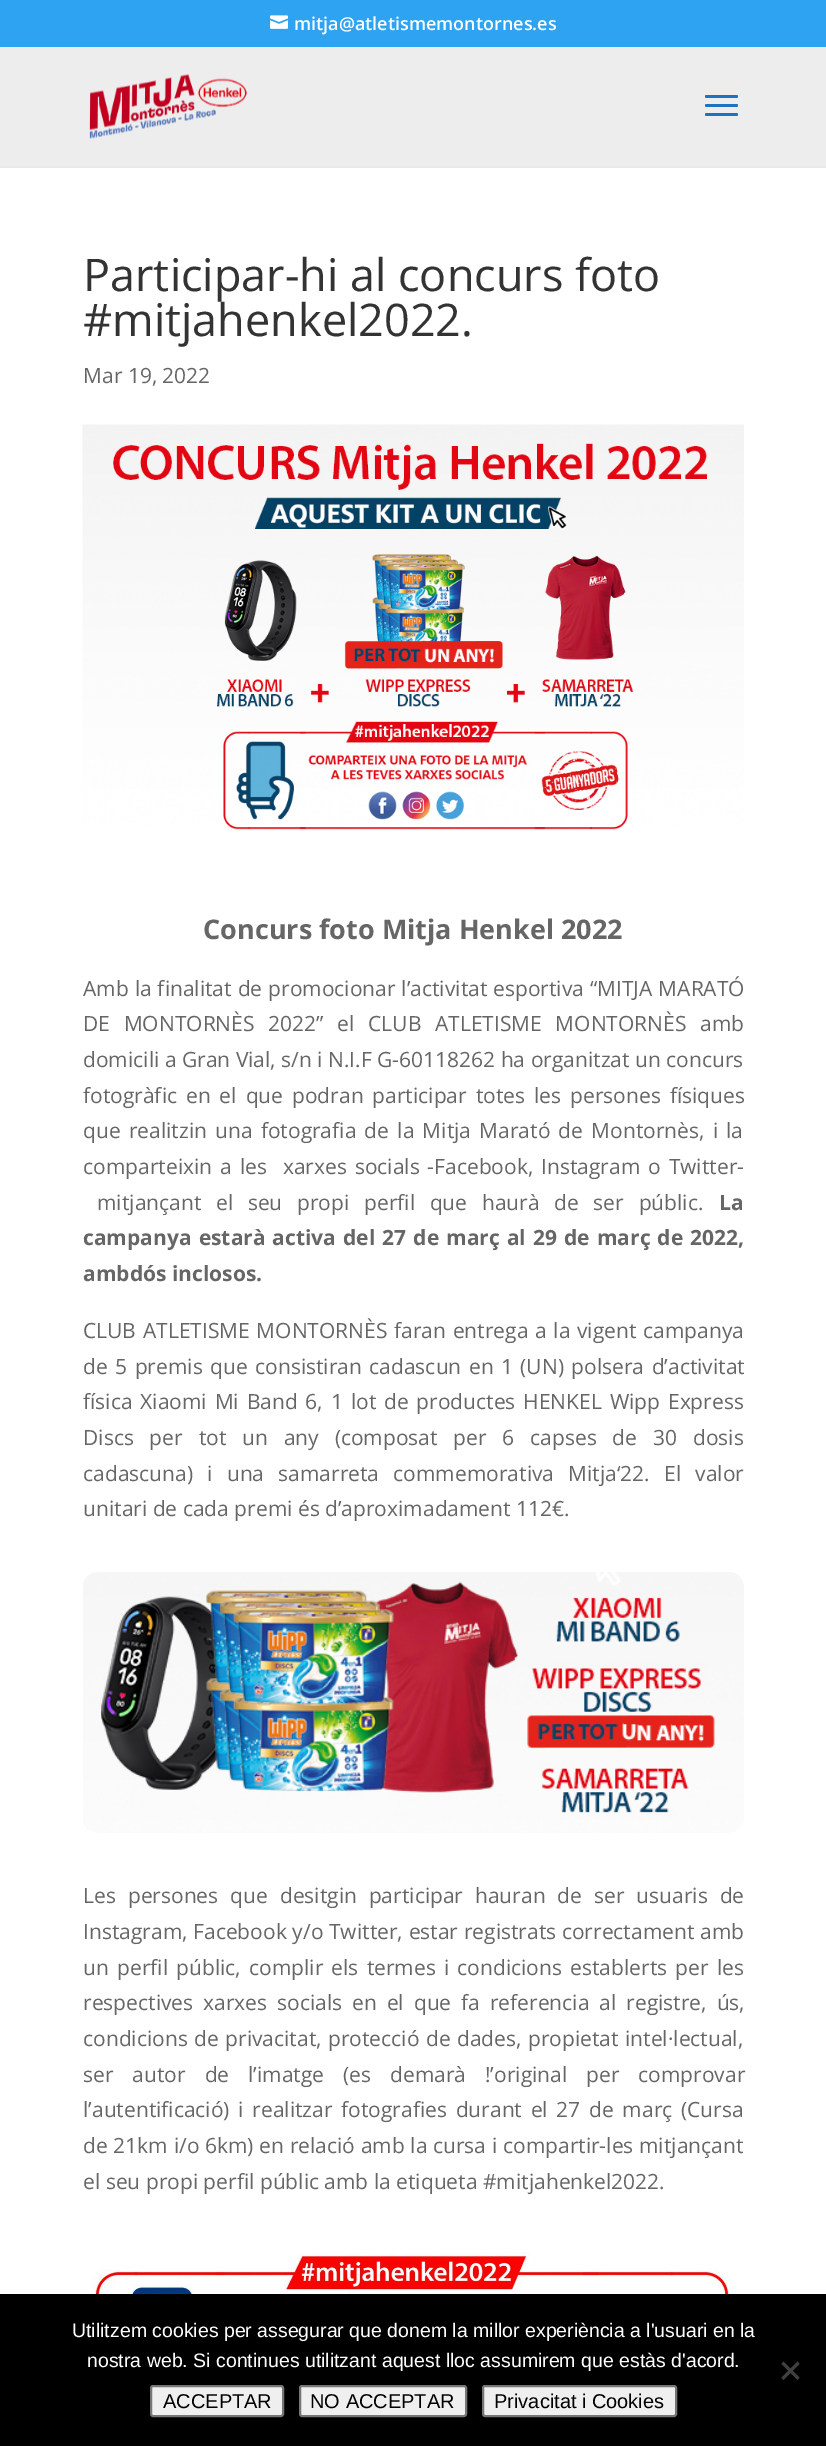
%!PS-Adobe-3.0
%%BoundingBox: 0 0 826 2446
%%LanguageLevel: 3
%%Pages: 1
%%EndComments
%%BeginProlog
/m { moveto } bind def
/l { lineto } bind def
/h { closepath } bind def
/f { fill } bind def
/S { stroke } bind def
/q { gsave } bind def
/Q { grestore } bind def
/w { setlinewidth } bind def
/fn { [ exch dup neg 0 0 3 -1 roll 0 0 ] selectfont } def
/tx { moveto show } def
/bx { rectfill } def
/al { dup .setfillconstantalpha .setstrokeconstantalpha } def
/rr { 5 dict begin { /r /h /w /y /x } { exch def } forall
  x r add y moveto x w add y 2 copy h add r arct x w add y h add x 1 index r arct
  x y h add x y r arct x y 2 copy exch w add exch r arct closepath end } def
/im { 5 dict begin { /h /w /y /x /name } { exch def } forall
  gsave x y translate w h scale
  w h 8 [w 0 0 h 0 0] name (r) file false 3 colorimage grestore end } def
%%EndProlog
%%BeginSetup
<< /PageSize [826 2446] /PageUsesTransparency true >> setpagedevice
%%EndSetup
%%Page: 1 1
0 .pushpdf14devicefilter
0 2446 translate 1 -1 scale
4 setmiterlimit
1 setgray
0 0 826 2446 bx
0.18 0.639 0.949 setrgbcolor
0 0 826 47 bx
(image0.raw) 270 15 18 14 im
/OpenSans-SemiBold 18 fn
1 setgray
(mitja@atletismemontornes.es) 294 30 tx
0.902 setgray
0 166 m 0 168 l 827 168 l 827 48 l 826 48 l 826 166 l h f
0.88 al
0.918 setgray
0 47 826 120 bx
1 al
(image1.raw) 89 74 158 65 im
0.118 0.451 0.745 setrgbcolor
705 95 33 3 1.5 rr f
705 104 33 3 1.5 rr f
705 113 33 3 1.5 rr f
/OpenSans-Regular 45 fn
0.2 setgray
(Participar-hi al concurs foto) 83 291 tx
(#mitjahenkel2022.) 83 336 tx
/OpenSans-Regular 21 fn
0.4 setgray
(Mar 19, 2022) 83 383 tx
(image2.raw) 82 424 662 406 im
/OpenSans-Bold 27 fn
(Concurs foto Mitja Henkel 2022) 203 939 tx
/OpenSans-Regular 21 fn
83 996 m 0.5 0 32 (Amb la finalitat de promocionar l’activitat esportiva “MITJA MARATÓ) widthshow
83 1031 m 8.25 0 32 (DE MONTORNÈS 2022” el CLUB ATLETISME MONTORNÈS amb) widthshow
(domicili a Gran Vial, s/n i N.I.F G-60118262 ha organitzat un concurs) 83 1067 tx
83 1103 m 3.5 0 32 (fotogràfic en el que podran participar totes les persones físiques) widthshow
83 1138 m 2.75 0 32 (que realitzin una fotografia de la Mitja Marató de Montornès, i la) widthshow
83 1174 m 2.5 0 32 (comparteixin a les  xarxes socials -Facebook, Instagram o Twitter-) widthshow
97 1210 m 9.25 0 32 (mitjançant el seu propi perfil que haurà de ser públic.) widthshow
/OpenSans-Bold 21 fn
(La) 719 1210 tx
83 1245 m 1.6 0 32 (campanya estarà activa del 27 de març al 29 de març de 2022,) widthshow
(ambdós inclosos.) 83 1281 tx
/OpenSans-Regular 21 fn
83 1338 m 1.25 0 32 (CLUB ATLETISME MONTORNÈS faran entrega a la vigent campanya) widthshow
83 1374 m 2 0 32 (de 5 premis que consistiran cadascun en 1 \(UN\) polsera d’activitat) widthshow
83 1409 m 2.4 0 32 (física Xiaomi Mi Band 6, 1 lot de productes HENKEL Wipp Express) widthshow
83 1445 m 10.4 0 32 (Discs per tot un any \(composat per 6 capses de 30 dosis) widthshow
83 1481 m 8.75 0 32 (cadascuna\) i una samarreta commemorativa Mitja‘22. El valor) widthshow
(unitari de cada premi és d’aproximadament 112€.) 83 1516 tx
(image3.raw) 83 1572 661 261 im
83 1903 m 6.5 0 32 (Les persones que desitgin participar hauran de ser usuaris de) widthshow
83 1939 m 0.25 0 32 (Instagram, Facebook y/o Twitter, estar registrats correctament amb) widthshow
83 1975 m 2.75 0 32 (un perfil públic, complir els termes i condicions establerts per les) widthshow
83 2010 m 4.5 0 32 (respectives xarxes socials en el que fa referencia al registre, ús,) widthshow
83 2046 m 1 0 32 (condicions de privacitat, protecció de dades, propietat intel·lectual,) widthshow
83 2082 m 13.5 0 32 (ser autor de l’imatge \(es demarà !’original per comprovar) widthshow
83 2117 m 3.25 0 32 (l’autentificació\) i realitzar fotografies durant el 27 de març \(Cursa) widthshow
83 2153 m 0.25 0 32 (de 21km i/o 6km\) en relació amb la cursa i compartir-les mitjançant) widthshow
(el seu propi perfil públic amb la etiqueta #mitjahenkel2022.) 83 2189 tx
(image4.raw) 91 2252 645 42 im
0 setgray
0 2294 826 152 bx
/LiberationSans-Regular 19.5 fn
1 setgray
(Utilitzem cookies per assegurar que donem la millor experiència a l'usuari en la) 72 2337 tx
(nostra web. Si continues utilitzant aquest lloc assumirem que estàs d'acord.) 87 2367 tx
0.251 setgray
797.5 2361.5 m 799.5 2364 l 783.5 2380 l 781.5 2377.5 l h f
781.5 2364 m 783.5 2361.5 l 799.5 2377.5 l 797.5 2380 l h f
0.937 setgray
151 2386 132 30 2 rr q f Q
0.463 setgray
2 w
S
/LiberationSans-Regular 20 fn
0 setgray
(ACCEPTAR) 163 2408 tx
0.937 setgray
300 2386 166 30 2 rr q f Q
0.463 setgray
S
0 setgray
(NO ACCEPTAR) 310 2408 tx
0.937 setgray
483 2386 193 30 2 rr q f Q
0.463 setgray
S
0 setgray
(Privacitat i Cookies) 494 2408 tx
.poppdf14devicefilter showpage
%%EOF
